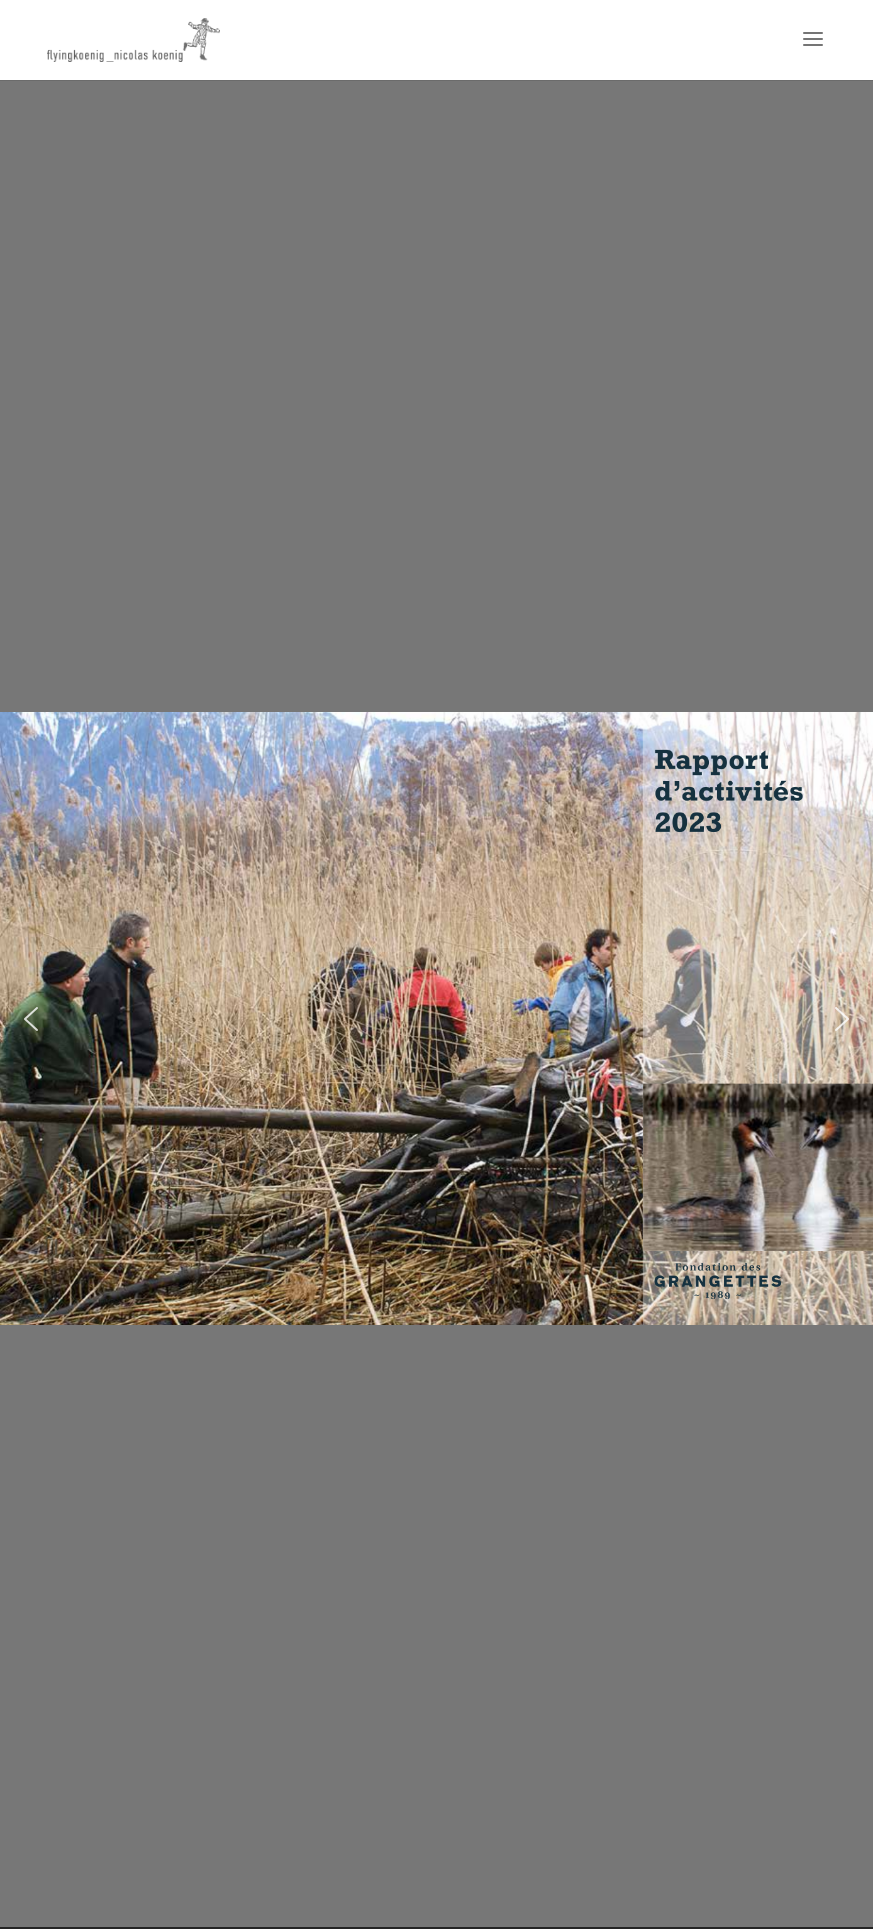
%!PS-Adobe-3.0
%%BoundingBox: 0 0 873 1929
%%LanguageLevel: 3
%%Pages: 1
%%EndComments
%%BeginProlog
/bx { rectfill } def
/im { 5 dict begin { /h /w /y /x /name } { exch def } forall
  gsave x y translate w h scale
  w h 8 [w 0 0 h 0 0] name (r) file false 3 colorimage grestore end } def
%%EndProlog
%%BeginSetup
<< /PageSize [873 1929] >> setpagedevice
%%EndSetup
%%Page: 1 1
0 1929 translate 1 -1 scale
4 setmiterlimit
1 setgray
0 0 873 1929 bx
0.42 setgray
0 80 873 1 bx
(image0.raw) 47 18 173 44 im
(image1.raw) 803 32 20 14 im
0.467 setgray
0 81 873 1846 bx
(image2.raw) 0 712 873 613 im
(image3.raw) 24 1007 14 24 im
(image4.raw) 835 1007 14 24 im
0.141 setgray
0 1927 873 2 bx
showpage
%%EOF
